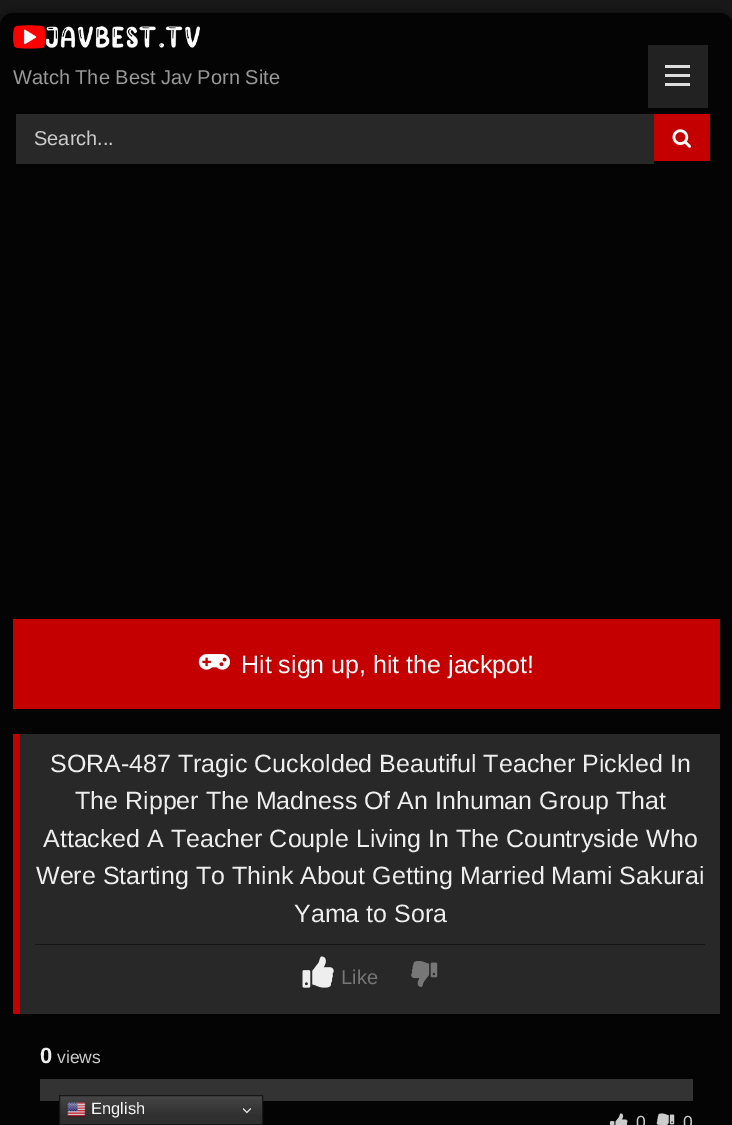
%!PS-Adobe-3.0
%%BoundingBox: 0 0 732 1125
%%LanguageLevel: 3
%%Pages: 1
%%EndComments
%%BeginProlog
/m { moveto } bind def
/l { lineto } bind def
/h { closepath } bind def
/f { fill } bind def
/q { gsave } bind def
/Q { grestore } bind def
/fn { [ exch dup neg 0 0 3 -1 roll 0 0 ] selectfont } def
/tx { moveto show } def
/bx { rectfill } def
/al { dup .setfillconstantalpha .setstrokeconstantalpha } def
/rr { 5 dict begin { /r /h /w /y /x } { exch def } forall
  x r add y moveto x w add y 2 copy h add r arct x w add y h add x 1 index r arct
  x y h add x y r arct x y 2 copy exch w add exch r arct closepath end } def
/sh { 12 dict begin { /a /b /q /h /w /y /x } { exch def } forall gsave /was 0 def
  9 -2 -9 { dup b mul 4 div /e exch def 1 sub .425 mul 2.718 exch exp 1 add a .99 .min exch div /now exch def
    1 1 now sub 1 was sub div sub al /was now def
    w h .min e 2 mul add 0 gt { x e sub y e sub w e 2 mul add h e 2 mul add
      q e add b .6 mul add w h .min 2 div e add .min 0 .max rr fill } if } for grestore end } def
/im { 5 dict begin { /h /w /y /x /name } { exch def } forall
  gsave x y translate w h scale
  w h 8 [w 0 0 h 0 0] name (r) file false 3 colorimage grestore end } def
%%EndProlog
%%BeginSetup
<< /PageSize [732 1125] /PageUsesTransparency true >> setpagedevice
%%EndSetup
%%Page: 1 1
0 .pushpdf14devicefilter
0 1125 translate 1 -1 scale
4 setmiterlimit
0.094 setgray
0 0 732 1125 bx
0 setgray
0 13 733 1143 13 6 0.5 sh
0.016 setgray
0 13 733 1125 13 rr f
(image0.raw) 13 25 187 24 im
/LiberationSans-Regular 20 fn
0.6 setgray
(Watch The Best Jav Porn Site) 13 84 tx
0.157 setgray
16 114 638 50 bx
0.8 setgray
(Search...) 34 145 tx
0.773 0 0 setrgbcolor
654 114 56 47 bx
(image1.raw) 672 129 20 19 im
0.133 setgray
648 45 60 63 bx
0.867 setgray
665 65 25 3 bx
665 74 25 3 bx
665 83 25 3 bx
0.773 0 0 setrgbcolor
13 619 707 90 bx
(image2.raw) 198 654 32 16 im
/LiberationSans-Regular 25 fn
1 setgray
(Hit sign up, hit the jackpot!) 241 673 tx
0.157 setgray
20 734 700 280 bx
0.773 0 0 setrgbcolor
13 734 7 280 bx
0.082 setgray
35 944 670 1 bx
0.933 setgray
(SORA-487 Tragic Cuckolded Beautiful Teacher Pickled In) 50 772 tx
(The Ripper The Madness Of An Inhuman Group That) 75 809 tx
(Attacked A Teacher Couple Living In The Countryside Who) 43 847 tx
(Were Starting To Think About Getting Married Mami Sakurai) 36 884 tx
(Yama to Sora) 294 922 tx
(image3.raw) 302 956 32 32 im
/LiberationSans-Regular 20 fn
0.467 setgray
(Like) 341 984 tx
(image4.raw) 411 961 27 26 im
/LiberationSans-Bold 22 fn
0.933 setgray
(0) 40 1063 tx
/LiberationSans-Regular 17.5 fn
0.8 setgray
(views) 57 1063 tx
0.2 setgray
40 1079 653 22 bx
(image5.raw) 610 1113 18 12 im
0.8 setgray
(0) 636 1128 tx
(image6.raw) 656 1113 19 12 im
(0) 683 1128 tx
q 60 1096 m 262 1096 l 262 1124 l 60 1124 l h clip newpath
<< /ShadingType 2 /ColorSpace /DeviceRGB /Coords [161 1095 161 1125] /Extend [true true] /Function << /FunctionType 3 /Domain [0 1] /Functions [<< /FunctionType 2 /Domain [0 1] /C0 [0.278 0.278 0.278] /C1 [0.188 0.188 0.188] /N 1 >> << /FunctionType 2 /Domain [0 1] /C0 [0.188 0.188 0.188] /C1 [0.188 0.188 0.188] /N 1 >>] /Bounds [0.7] /Encode [0 1 0 1] >> >> shfill Q
0.086 setgray
59.5 1095.5 203 29 rectstroke
(image7.raw) 66 1102 20 16 im
/LiberationSans-Regular 16.5 fn
0.969 setgray
(English) 91 1114 tx
(image8.raw) 243 1108 8 6 im
.poppdf14devicefilter showpage
%%EOF
